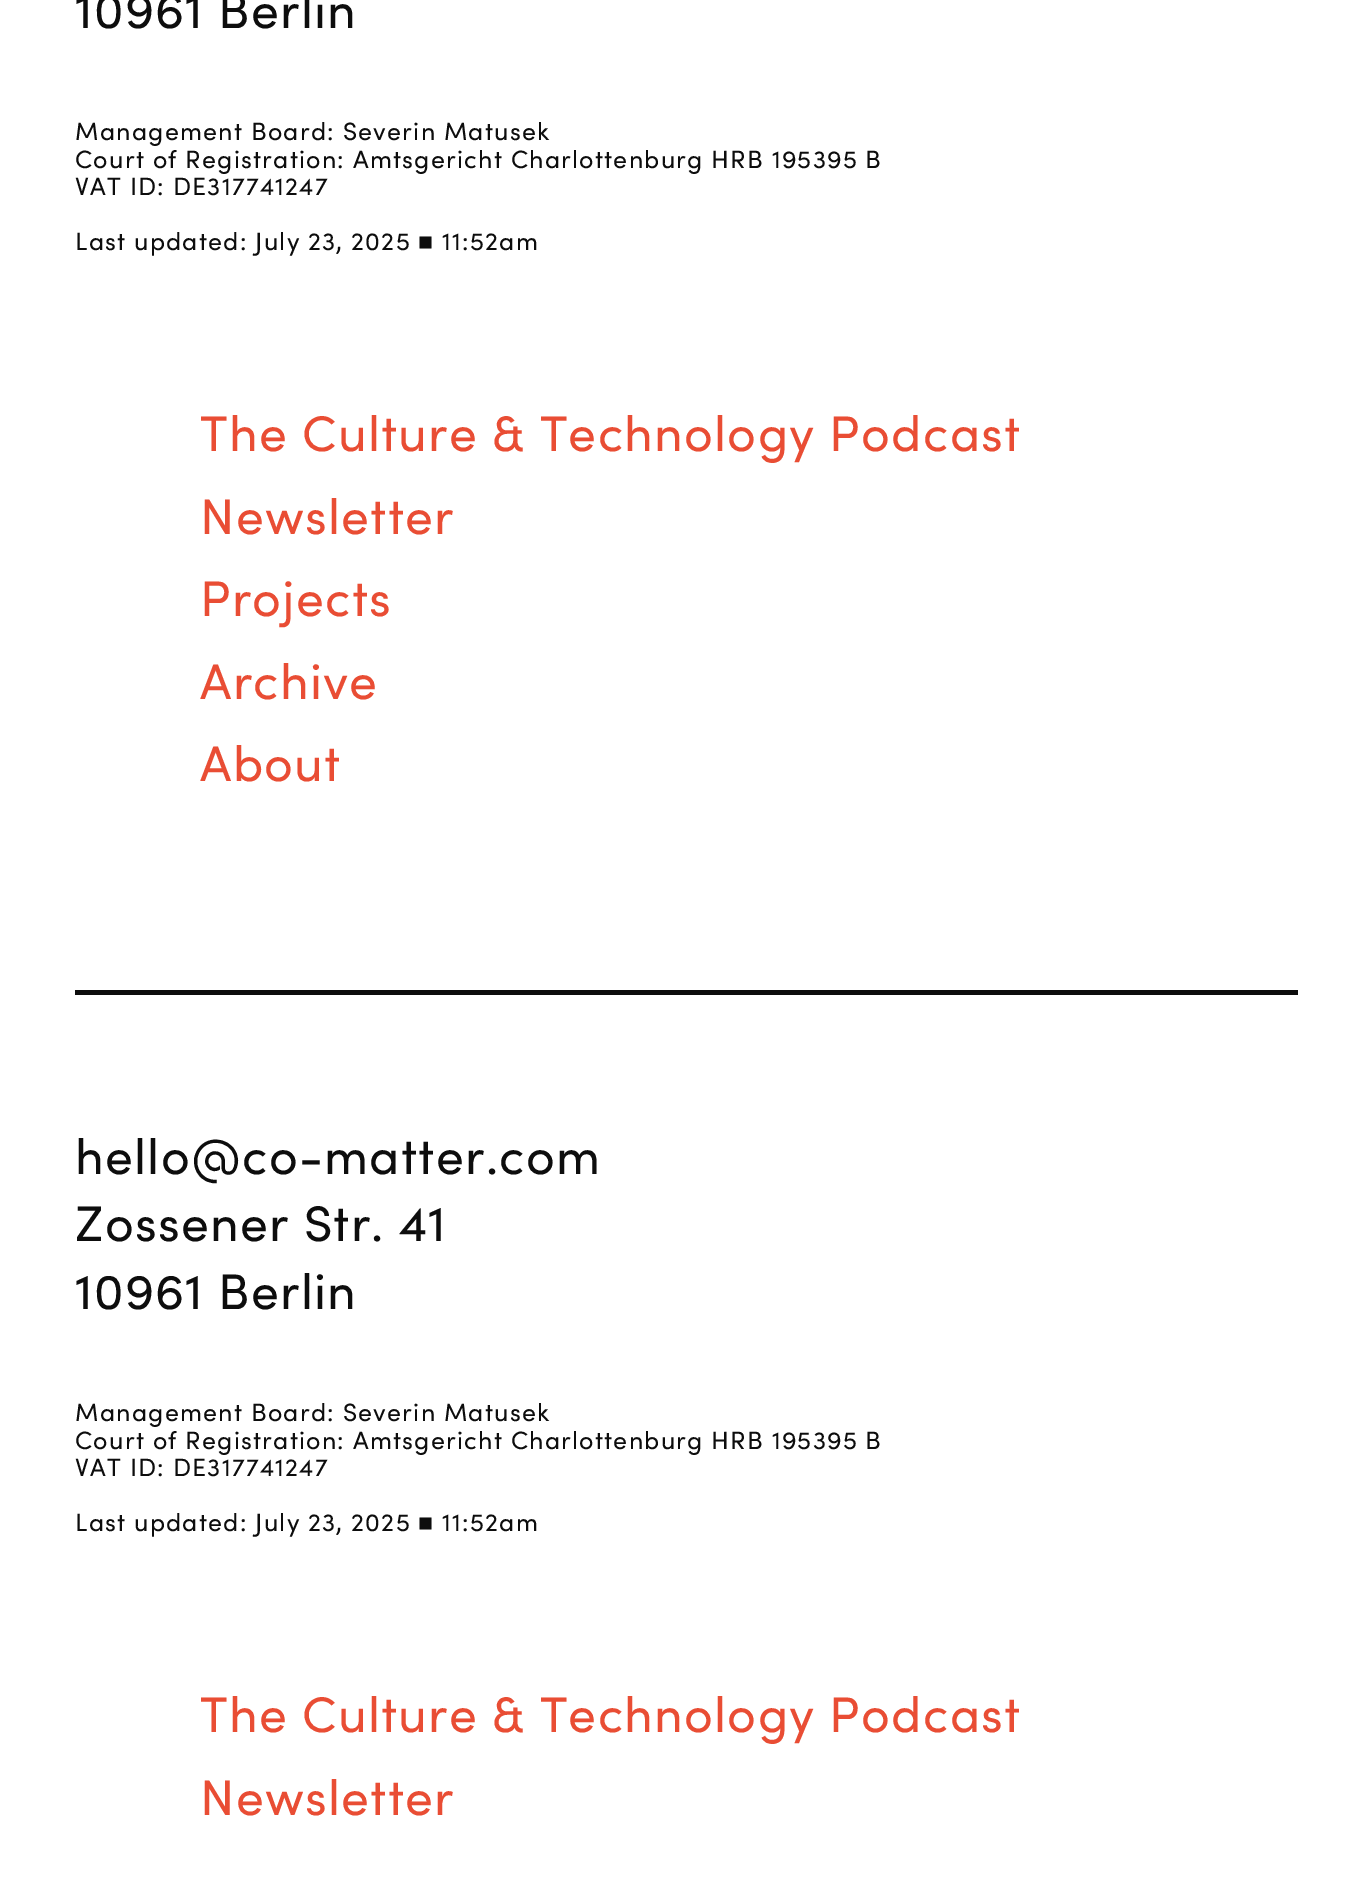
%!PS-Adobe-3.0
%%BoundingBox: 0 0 1372 1878
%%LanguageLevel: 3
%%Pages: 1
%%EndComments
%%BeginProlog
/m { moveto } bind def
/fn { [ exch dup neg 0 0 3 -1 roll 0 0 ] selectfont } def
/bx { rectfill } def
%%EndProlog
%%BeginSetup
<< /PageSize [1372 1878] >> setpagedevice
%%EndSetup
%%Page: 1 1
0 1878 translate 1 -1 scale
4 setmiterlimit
1 setgray
0 0 1372 1878 bx
/Sofia-Regular 50 fn
0.051 setgray
75 28 m 1.25 0 (10961 Berlin) ashow
/Sofia-Regular 25 fn
75 140 m 1.25 0 (Management Board: Severin Matusek) ashow
75 168 m 1.25 0 (Court of Registration: Amtsgericht Charlottenburg HRB 195395 B) ashow
75 195 m 1.25 0 (VAT ID: DE317741247) ashow
75 250 m 1.25 0 (Last updated: July 23, 2025) ashow
/LiberationSans-Regular 25 fn
418 250 m 1.25 0 (■) ashow
/Sofia-Regular 25 fn
442 250 m 1.25 0 (11:52am) ashow
/Sofia-Regular 50 fn
0.914 0.302 0.204 setrgbcolor
200 451 m 1.25 0 (The Culture & Technology Podcast) ashow
200 534 m 1.25 0 (Newsletter) ashow
200 616 m 1.25 0 (Projects) ashow
200 699 m 1.25 0 (Archive) ashow
200 781 m 1.25 0 (About) ashow
0.051 setgray
75 990 1223 5 bx
75 1174 m 1.25 0 (hello@co-matter.com) ashow
75 1241 m 1.25 0 (Zossener Str. 41) ashow
75 1309 m 1.25 0 (10961 Berlin) ashow
/Sofia-Regular 25 fn
75 1421 m 1.25 0 (Management Board: Severin Matusek) ashow
75 1449 m 1.25 0 (Court of Registration: Amtsgericht Charlottenburg HRB 195395 B) ashow
75 1476 m 1.25 0 (VAT ID: DE317741247) ashow
75 1531 m 1.25 0 (Last updated: July 23, 2025) ashow
/LiberationSans-Regular 25 fn
418 1531 m 1.25 0 (■) ashow
/Sofia-Regular 25 fn
442 1531 m 1.25 0 (11:52am) ashow
/Sofia-Regular 50 fn
0.914 0.302 0.204 setrgbcolor
200 1732 m 1.25 0 (The Culture & Technology Podcast) ashow
200 1815 m 1.25 0 (Newsletter) ashow
showpage
%%EOF
